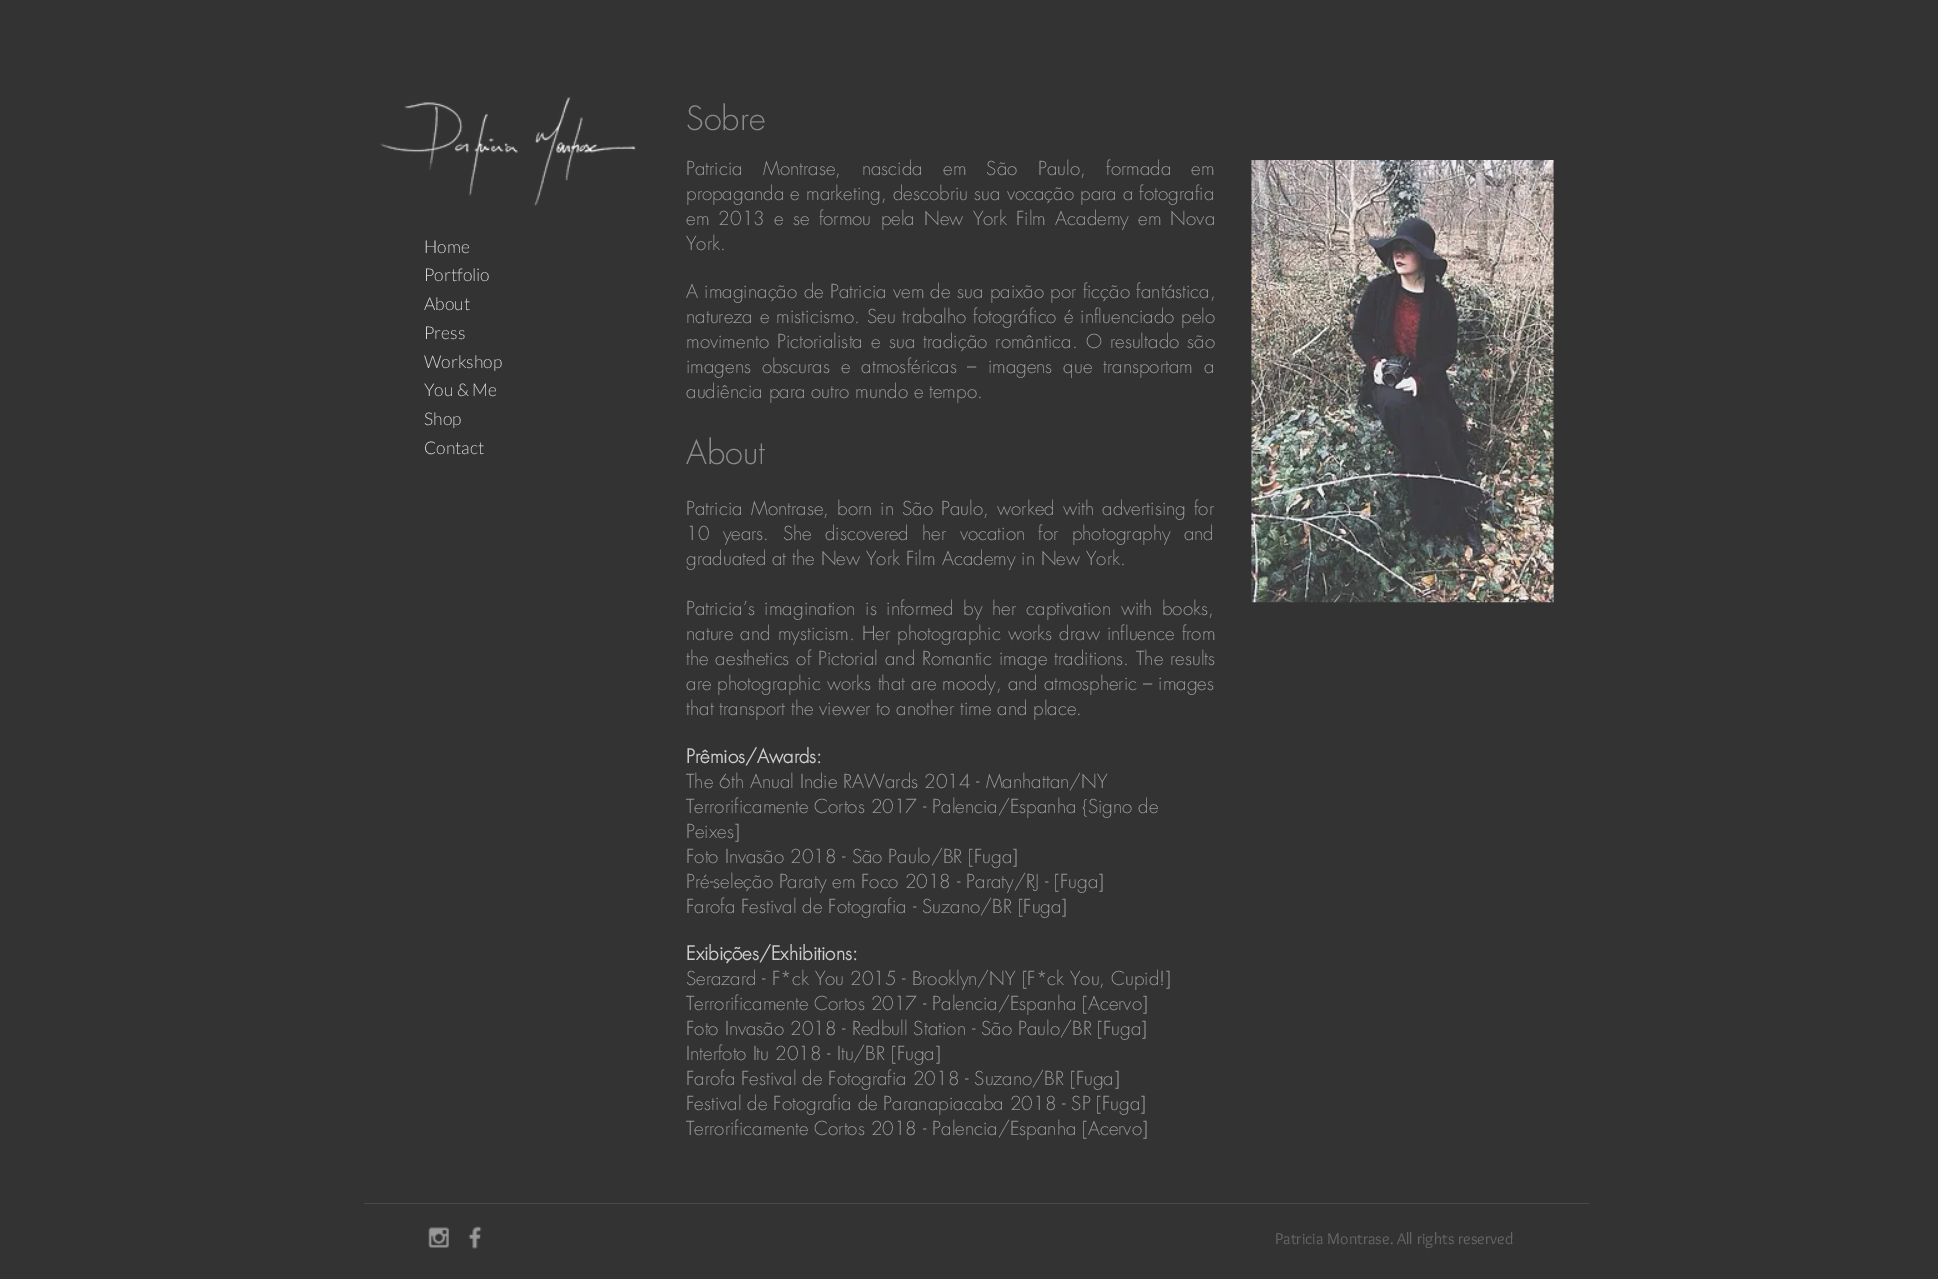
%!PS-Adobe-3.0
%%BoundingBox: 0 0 1938 1279
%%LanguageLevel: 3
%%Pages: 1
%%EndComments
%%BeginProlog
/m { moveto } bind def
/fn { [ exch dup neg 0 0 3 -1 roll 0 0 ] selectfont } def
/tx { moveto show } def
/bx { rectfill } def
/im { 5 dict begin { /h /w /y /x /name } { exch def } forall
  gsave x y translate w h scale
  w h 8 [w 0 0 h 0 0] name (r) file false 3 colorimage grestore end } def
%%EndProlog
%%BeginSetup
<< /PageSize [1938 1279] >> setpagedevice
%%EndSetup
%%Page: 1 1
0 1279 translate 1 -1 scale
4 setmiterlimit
0.2 setgray
0 0 1938 1279 bx
(image0.raw) 380 97 256 109 im
/Lato-Light 17.5 fn
0.847 setgray
(Home) 424 253 tx
(Portfolio) 424 281 tx
(About) 424 310 tx
(Press) 424 339 tx
(Workshop) 424 368 tx
(You & Me) 424 396 tx
(Shop) 424 425 tx
(Contact) 424 454 tx
/futura-Light 32.5 fn
0.541 setgray
(Sobre) 686 130 tx
/futura-Light 18.75 fn
0.608 setgray
686 175 m 14.5 0 32 (Patricia Montrase, nascida em São Paulo, formada em) widthshow
686 200 m 0.25 0 32 (propaganda e marketing, descobriu sua vocação para a fotografia) widthshow
686 225 m 3.4 0 32 (em 2013 e se formou pela New York Film Academy em Nova) widthshow
(York.) 686 250 tx
686 298 m 0.5 0 32 (A imaginação de Patricia vem de sua paixão por ficção fantástica,) widthshow
686 323 m 1.25 0 32 (natureza e misticismo. Seu trabalho fotográfico é influenciado pelo) widthshow
686 348 m 2.25 0 32 (movimento Pictorialista e sua tradição romântica. O resultado são) widthshow
686 373 m 5 0 32 (imagens obscuras e atmosféricas – imagens que transportam a) widthshow
(audiência para outro mundo e tempo.) 686 398 tx
/futura-Light 32.5 fn
0.541 setgray
(About) 686 464 tx
/futura-Light 18.75 fn
0.608 setgray
686 515 m 2.25 0 32 (Patricia Montrase, born in São Paulo, worked with advertising for) widthshow
686 540 m 7.5 0 32 (10 years. She discovered her vocation for photography and) widthshow
(graduated at the New York Film Academy in New York.) 686 565 tx
686 615 m 4 0 32 (Patricia’s imagination is informed by her captivation with books,) widthshow
686 640 m 1.25 0 32 (nature and mysticism. Her photographic works draw influence from) widthshow
686 665 m 1 0 32 (the aesthetics of Pictorial and Romantic image traditions. The results) widthshow
686 690 m 0.25 0 32 (are photographic works that are moody, and atmospheric – images) widthshow
(that transport the viewer to another time and place.) 686 715 tx
/futura-Bold 18.75 fn
0.804 setgray
(Prêmios/Awards:) 686 763 tx
/futura-Light 18.75 fn
0.608 setgray
(The 6th Anual Indie RAWards 2014 - Manhattan/NY) 686 788 tx
(Terrorificamente Cortos 2017 - Palencia/Espanha {Signo de) 686 813 tx
(Peixes]) 686 838 tx
(Foto Invasão 2018 - São Paulo/BR [Fuga]) 686 863 tx
(Pré-seleção Paraty em Foco 2018 - Paraty/RJ - [Fuga]) 686 888 tx
(Farofa Festival de Fotografia - Suzano/BR [Fuga]) 686 913 tx
/futura-Bold 18.75 fn
0.804 setgray
(Exibições/Exhibitions:) 686 960 tx
/futura-Light 18.75 fn
0.608 setgray
(Serazard - F*ck You 2015 - Brooklyn/NY [F*ck You, Cupid!]) 686 985 tx
(Terrorificamente Cortos 2017 - Palencia/Espanha [Acervo]) 686 1010 tx
(Foto Invasão 2018 - Redbull Station - São Paulo/BR [Fuga]) 686 1035 tx
(Interfoto Itu 2018 - Itu/BR [Fuga]) 686 1060 tx
(Farofa Festival de Fotografia 2018 - Suzano/BR [Fuga]) 686 1085 tx
(Festival de Fotografia de Paranapiacaba 2018 - SP [Fuga]) 686 1110 tx
(Terrorificamente Cortos 2018 - Palencia/Espanha [Acervo]) 686 1135 tx
(image1.raw) 1251 160 303 443 im
0.286 setgray
364 1203 1225 1 bx
(image2.raw) 428 1227 21 21 im
(image3.raw) 468 1226 14 23 im
/Overlock-Regular 16.25 fn
0.4 setgray
(Patricia Montrase. All rights reserved) 1275 1244 tx
showpage
%%EOF
